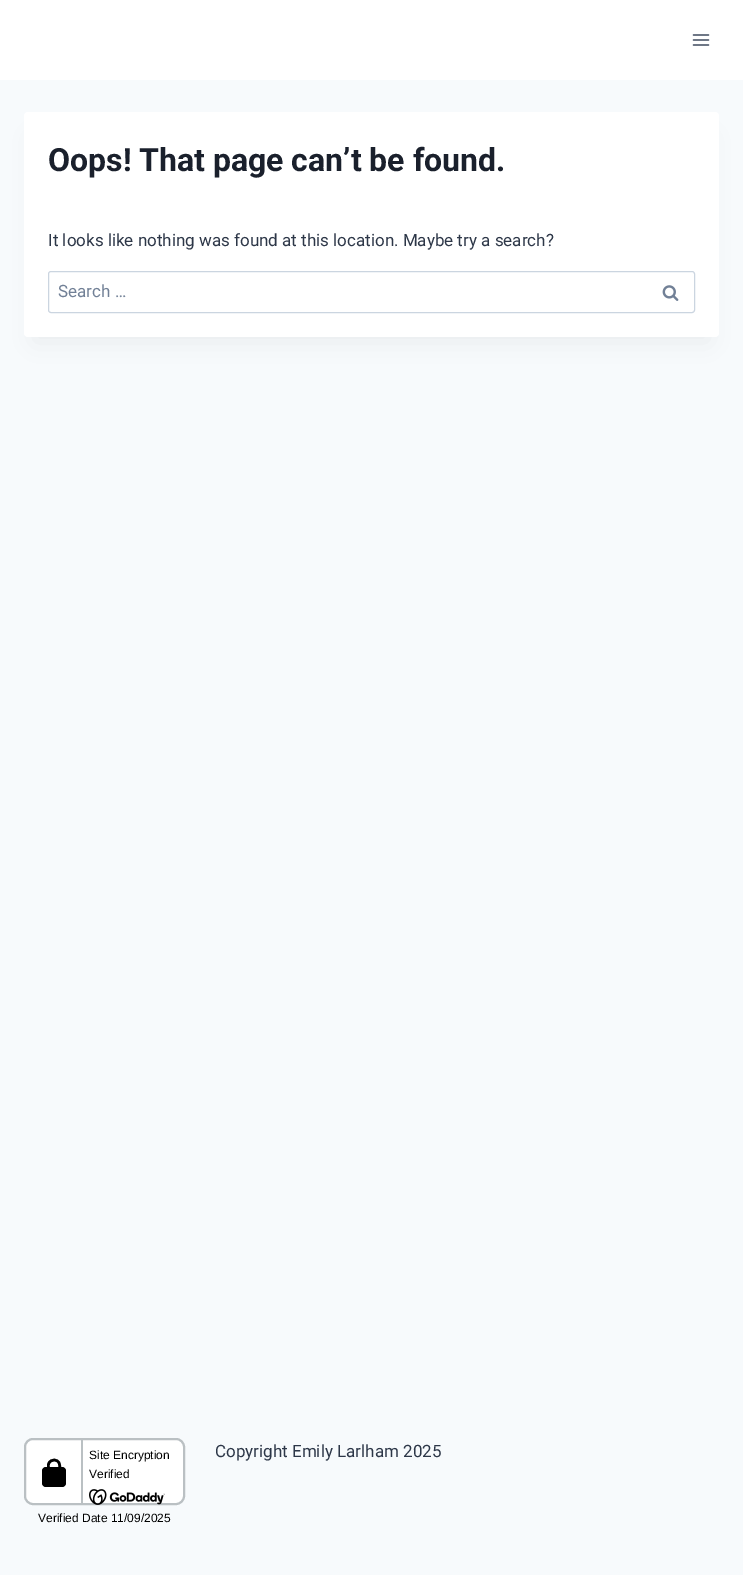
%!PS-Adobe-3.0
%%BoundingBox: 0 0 743 1575
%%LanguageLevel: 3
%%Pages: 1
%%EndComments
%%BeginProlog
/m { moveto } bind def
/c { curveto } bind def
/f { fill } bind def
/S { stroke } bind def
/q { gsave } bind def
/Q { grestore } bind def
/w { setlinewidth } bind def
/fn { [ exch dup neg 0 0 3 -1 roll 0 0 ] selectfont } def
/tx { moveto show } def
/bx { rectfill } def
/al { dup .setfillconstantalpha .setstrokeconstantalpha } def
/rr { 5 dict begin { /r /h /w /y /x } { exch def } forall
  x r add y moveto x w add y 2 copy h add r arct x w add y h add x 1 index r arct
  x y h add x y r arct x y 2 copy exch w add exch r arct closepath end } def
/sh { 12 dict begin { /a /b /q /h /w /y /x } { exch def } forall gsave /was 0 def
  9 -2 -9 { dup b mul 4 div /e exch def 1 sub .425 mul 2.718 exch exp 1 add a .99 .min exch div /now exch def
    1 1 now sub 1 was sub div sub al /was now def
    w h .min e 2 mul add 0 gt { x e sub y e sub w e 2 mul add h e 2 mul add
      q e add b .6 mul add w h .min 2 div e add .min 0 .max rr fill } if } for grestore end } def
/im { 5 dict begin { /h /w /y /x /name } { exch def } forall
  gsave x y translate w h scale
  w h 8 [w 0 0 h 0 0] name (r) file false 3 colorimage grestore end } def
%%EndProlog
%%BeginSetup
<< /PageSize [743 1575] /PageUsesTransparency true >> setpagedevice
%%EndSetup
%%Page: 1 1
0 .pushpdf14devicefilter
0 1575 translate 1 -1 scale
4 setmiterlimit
0.969 0.98 0.988 setrgbcolor
0 0 743 1575 bx
1 setgray
0 0 743 80 bx
(image0.raw) 692 34 18 12 im
0 setgray
34 137 675 205 0 12.5 0.05 sh
1 setgray
24 112 695 225 4 rr f
/Roboto-Bold 32 fn
0.102 0.125 0.173 setrgbcolor
(Oops! That page can’t be found.) 48 171 tx
/Roboto-Regular 17 fn
0.176 0.216 0.282 setrgbcolor
(It looks like nothing was found at this location. Maybe try a search?) 48 246 tx
0.796 0.835 0.878 setrgbcolor
48.5 271.5 646 41 2.5 rr S
0.443 0.502 0.588 setrgbcolor
(Search …) 58 297 tx
(image1.raw) 662 285 17 16 im
1 setgray
25 1439 159 65 8 rr q f Q
0.729 0.753 0.765 setrgbcolor
2 w
S
0 setgray
2.6 w
1 setlinecap
59.5 1476 m 59.5 1473 60.5 1466 59 1463 c 57.5 1459 51 1459 49 1463 c 48 1464.5 48.5 1466.5 48.5 1468 c S
42 1467 24 20 4 rr f
0.729 0.753 0.765 setrgbcolor
81 1439 2 65 bx
/LiberationSans-Regular 12 fn
0 setgray
(Site Encryption) 89 1459 tx
(Verified) 89 1478 tx
(image2.raw) 89 1489 76 16 im
(Verified Date 11/09/2025) 38 1522 tx
/Roboto-Regular 17 fn
0.176 0.216 0.282 setrgbcolor
(Copyright Emily Larlham 2025) 215 1457 tx
.poppdf14devicefilter showpage
%%EOF
